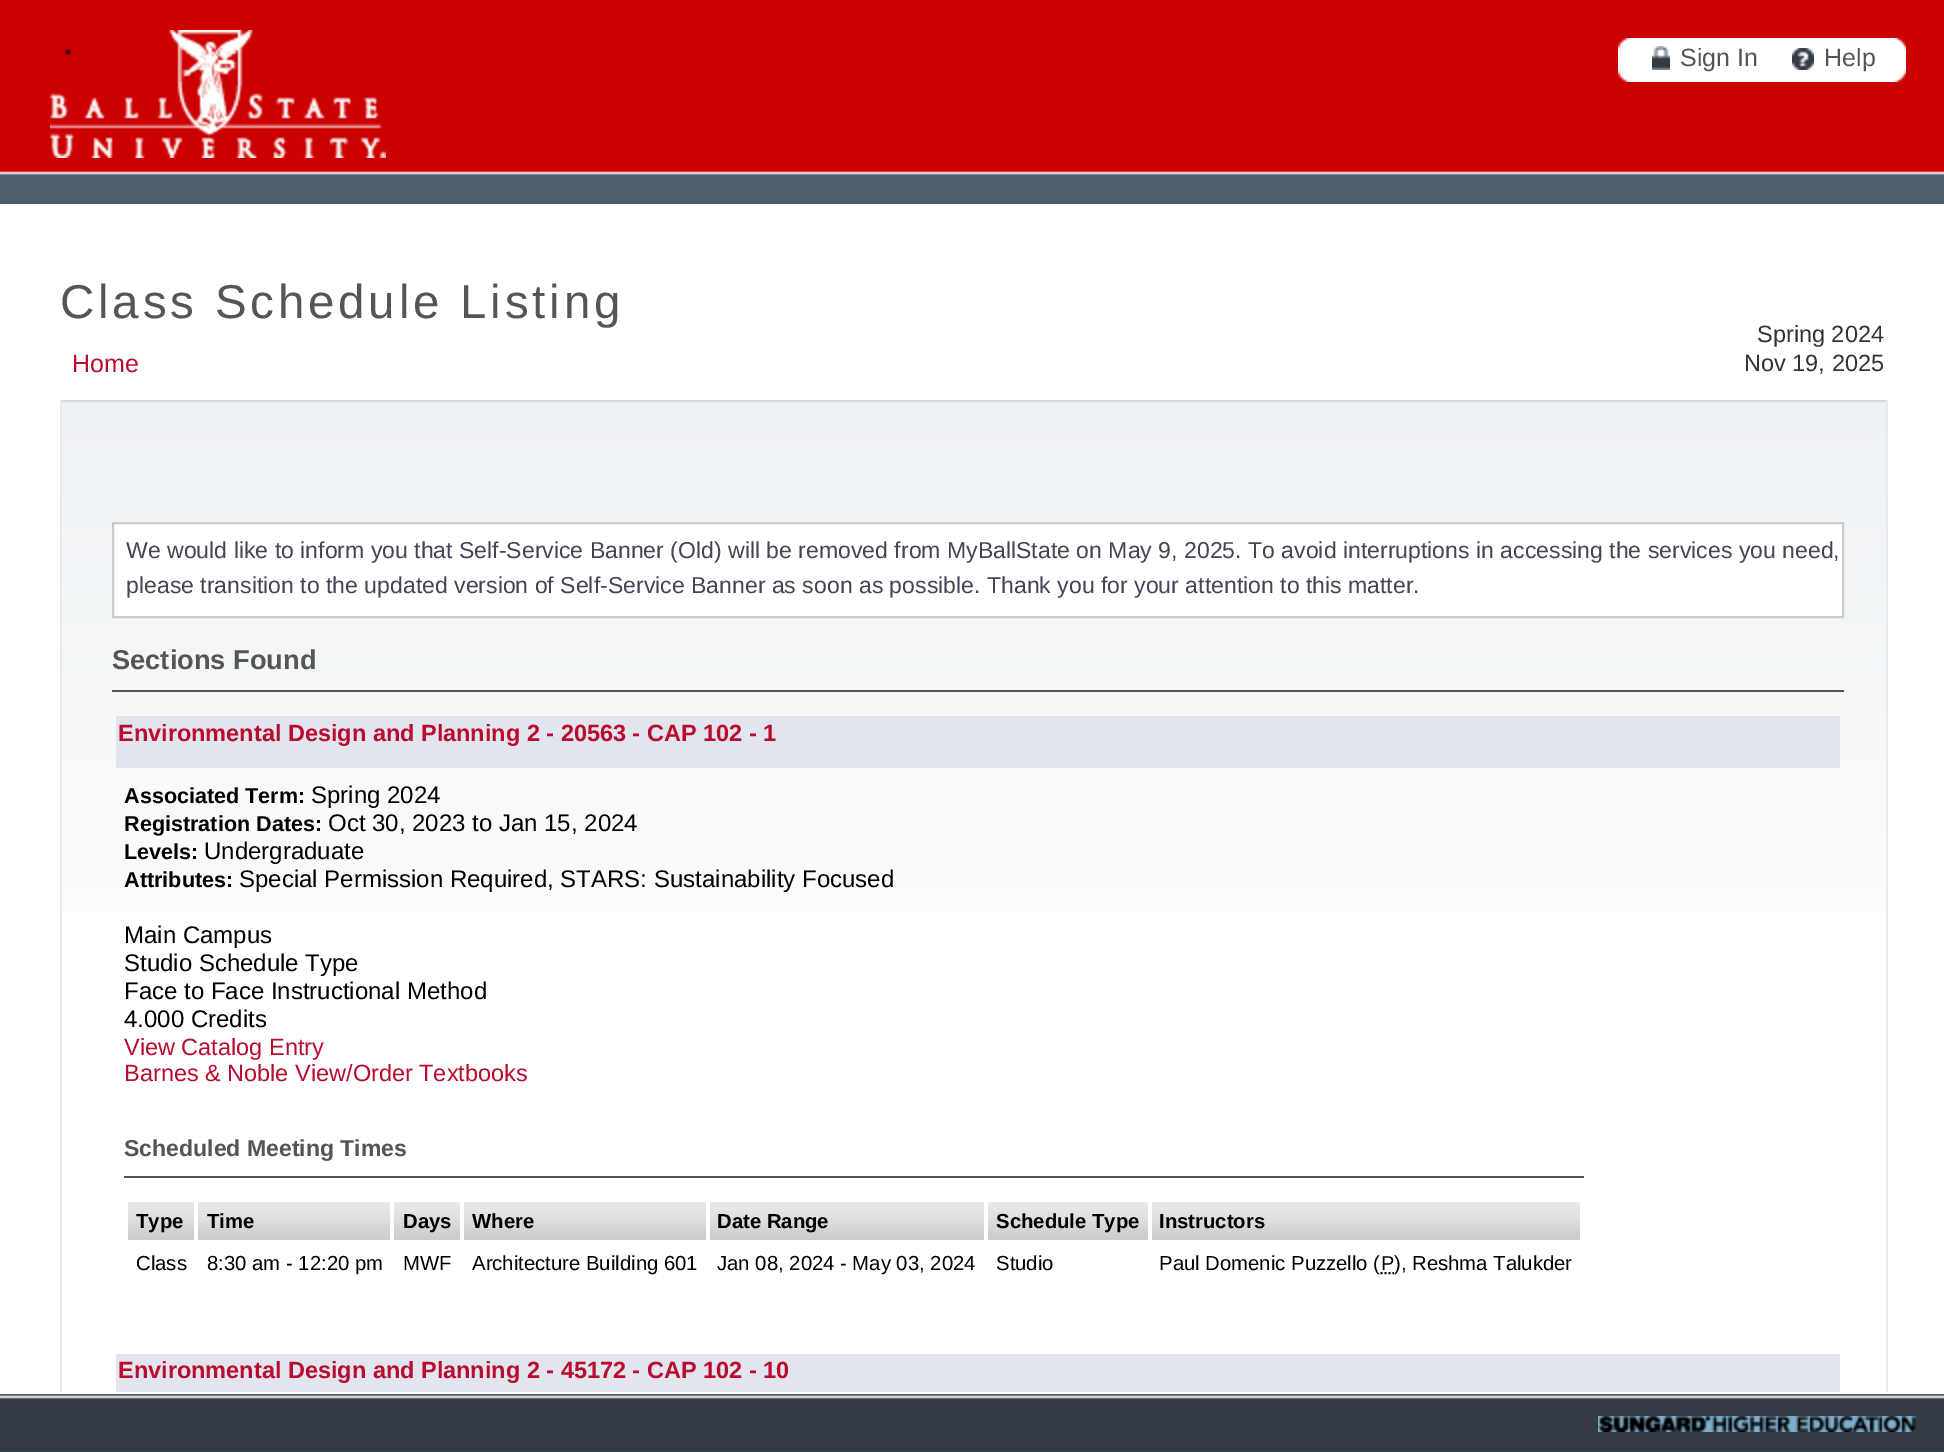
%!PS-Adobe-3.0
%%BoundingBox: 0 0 1944 1452
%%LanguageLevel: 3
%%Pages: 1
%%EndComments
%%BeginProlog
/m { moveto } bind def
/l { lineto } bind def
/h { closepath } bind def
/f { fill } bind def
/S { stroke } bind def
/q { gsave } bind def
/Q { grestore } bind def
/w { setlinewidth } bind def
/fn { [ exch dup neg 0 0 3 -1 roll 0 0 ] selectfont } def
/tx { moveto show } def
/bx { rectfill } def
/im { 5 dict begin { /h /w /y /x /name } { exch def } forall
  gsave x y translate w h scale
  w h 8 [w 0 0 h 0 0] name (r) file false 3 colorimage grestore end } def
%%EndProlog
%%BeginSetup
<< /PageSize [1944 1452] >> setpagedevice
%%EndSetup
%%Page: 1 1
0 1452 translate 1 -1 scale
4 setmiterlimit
1 setgray
0 0 1944 1452 bx
(image0.raw) 0 0 1944 204 im
(image1.raw) 50 30 336 128 im
(image2.raw) 1618 38 14 44 im
(image3.raw) 1892 38 14 44 im
1632 38 260 44 bx
(image4.raw) 1652 46 18 24 im
/LiberationSans-Regular 25 fn
0.333 setgray
(Sign In) 1680 66 tx
(image5.raw) 1792 48 22 22 im
(Help) 1824 66 tx
/LiberationSans-Regular 47.5 fn
60 318 m 3.8 0 (Class Schedule Listing) ashow
/LiberationSans-Regular 25 fn
0.729 0.047 0.184 setrgbcolor
(Home) 72 372 tx
/LiberationSans-Regular 23.5 fn
0.2 setgray
(Spring 2024) 1757 342 tx
(Nov 19, 2025) 1744 371 tx
(image6.raw) 62 400 1824 512 im
0.898 0.922 0.933 setrgbcolor
1886 400 2 992 bx
60 400 2 992 bx
1 setgray
113 523 m 1843 523 l 1843 617 l 113 617 l h q f Q
0.8 setgray
2 w
S
/LiberationSans-Regular 23.05 fn
0.267 0.267 0.333 setrgbcolor
(We would like to inform you that Self-Service Banner \(Old\) will be removed from MyBallState on May 9, 2025. To avoid interruptions in accessing the services you need,) 126 558 tx
(please transition to the updated version of Self-Service Banner as soon as possible. Thank you for your attention to this matter.) 126 593 tx
0.333 setgray
112 690 1732 2 bx
/LiberationSans-Bold 27.25 fn
(Sections Found) 112 669 tx
0.89 0.898 0.933 setrgbcolor
116 716 1724 52 bx
/LiberationSans-Bold 23.5 fn
0.729 0.047 0.184 setrgbcolor
(Environmental Design and Planning 2 - 20563 - CAP 102 - 1) 118 741 tx
/LiberationSans-Bold 21.6 fn
0 setgray
(Associated Term:) 124 803 tx
/LiberationSans-Regular 24 fn
(Spring 2024) 311 803 tx
/LiberationSans-Bold 21.6 fn
(Registration Dates:) 124 831 tx
/LiberationSans-Regular 24 fn
(Oct 30, 2023 to Jan 15, 2024) 328 831 tx
/LiberationSans-Bold 21.6 fn
(Levels:) 124 859 tx
/LiberationSans-Regular 24 fn
(Undergraduate) 204 859 tx
/LiberationSans-Bold 21.6 fn
(Attributes:) 124 887 tx
/LiberationSans-Regular 24 fn
(Special Permission Required, STARS: Sustainability Focused) 239 887 tx
(Main Campus) 124 943 tx
(Studio Schedule Type) 124 971 tx
(Face to Face Instructional Method) 124 999 tx
(4.000 Credits) 124 1027 tx
/LiberationSans-Regular 23.5 fn
0.729 0.047 0.184 setrgbcolor
(View Catalog Entry) 124 1055 tx
(Barnes & Noble View/Order Textbooks) 124 1081 tx
0.333 setgray
124 1176 1460 2 bx
/LiberationSans-Bold 23.05 fn
(Scheduled Meeting Times) 124 1156 tx
(image7.raw) 128 1202 66 38 im
/LiberationSans-Bold 20.3 fn
0 setgray
(Type) 136 1228 tx
(image8.raw) 198 1202 192 38 im
(Time) 207 1228 tx
(image7.raw) 394 1202 66 38 im
(Days) 403 1228 tx
(image9.raw) 464 1202 242 38 im
(Where) 472 1228 tx
(image10.raw) 710 1202 274 38 im
(Date Range) 717 1228 tx
(image11.raw) 988 1202 160 38 im
(Schedule Type) 996 1228 tx
(image12.raw) 1152 1202 428 38 im
(Instructors) 1159 1228 tx
/LiberationSans-Regular 20.3 fn
(Class) 136 1270 tx
(8:30 am - 12:20 pm) 207 1270 tx
(MWF) 403 1270 tx
(Architecture Building 601) 472 1270 tx
(Jan 08, 2024 - May 03, 2024) 717 1270 tx
(Studio) 996 1270 tx
(Paul Domenic Puzzello \() 1159 1270 tx
/LiberationSans-Regular 20 fn
(P) 1381 1270 tx
1380.5 1273 m 1382.5 1273 l 1384.5 1273 m 1386.5 1273 l 1388.5 1273 m 1390.5 1273 l 1392.5 1273 m 1394 1273 l S
/LiberationSans-Regular 20.3 fn
(\), Reshma Talukder) 1394 1270 tx
0.89 0.898 0.933 setrgbcolor
116 1354 1724 38 bx
/LiberationSans-Bold 23.5 fn
0.729 0.047 0.184 setrgbcolor
(Environmental Design and Planning 2 - 45172 - CAP 102 - 10) 118 1378 tx
(image13.raw) 0 1394 1944 58 im
(image14.raw) 1598 1416 318 16 im
showpage
%%EOF
